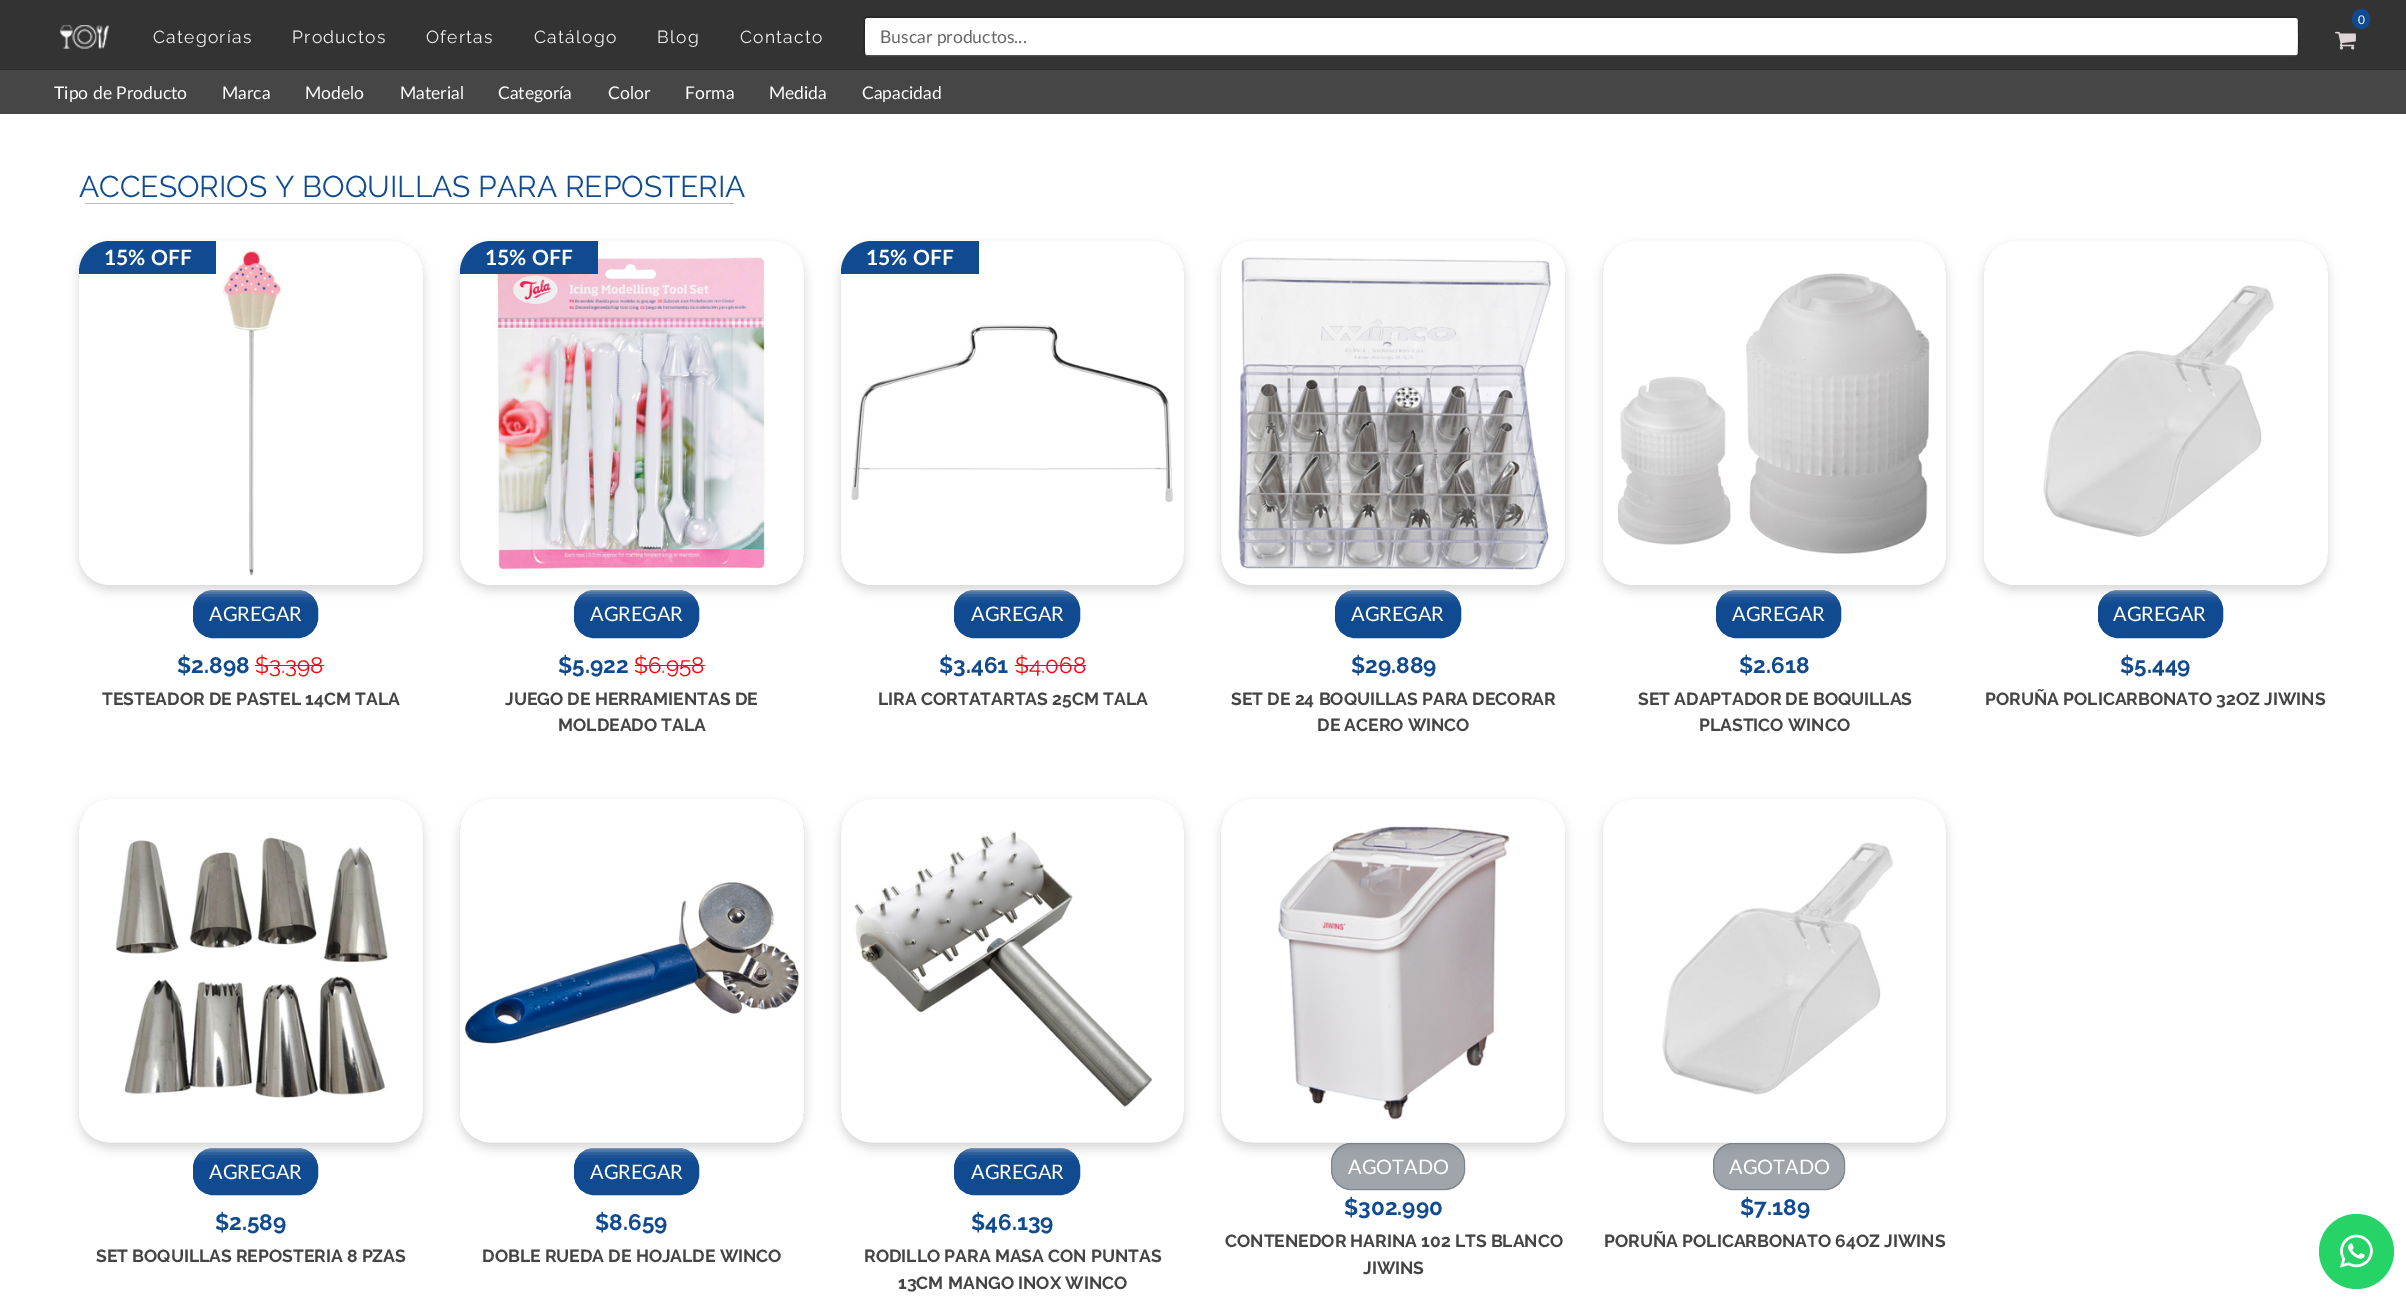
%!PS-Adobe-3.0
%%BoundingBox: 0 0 2406 1301
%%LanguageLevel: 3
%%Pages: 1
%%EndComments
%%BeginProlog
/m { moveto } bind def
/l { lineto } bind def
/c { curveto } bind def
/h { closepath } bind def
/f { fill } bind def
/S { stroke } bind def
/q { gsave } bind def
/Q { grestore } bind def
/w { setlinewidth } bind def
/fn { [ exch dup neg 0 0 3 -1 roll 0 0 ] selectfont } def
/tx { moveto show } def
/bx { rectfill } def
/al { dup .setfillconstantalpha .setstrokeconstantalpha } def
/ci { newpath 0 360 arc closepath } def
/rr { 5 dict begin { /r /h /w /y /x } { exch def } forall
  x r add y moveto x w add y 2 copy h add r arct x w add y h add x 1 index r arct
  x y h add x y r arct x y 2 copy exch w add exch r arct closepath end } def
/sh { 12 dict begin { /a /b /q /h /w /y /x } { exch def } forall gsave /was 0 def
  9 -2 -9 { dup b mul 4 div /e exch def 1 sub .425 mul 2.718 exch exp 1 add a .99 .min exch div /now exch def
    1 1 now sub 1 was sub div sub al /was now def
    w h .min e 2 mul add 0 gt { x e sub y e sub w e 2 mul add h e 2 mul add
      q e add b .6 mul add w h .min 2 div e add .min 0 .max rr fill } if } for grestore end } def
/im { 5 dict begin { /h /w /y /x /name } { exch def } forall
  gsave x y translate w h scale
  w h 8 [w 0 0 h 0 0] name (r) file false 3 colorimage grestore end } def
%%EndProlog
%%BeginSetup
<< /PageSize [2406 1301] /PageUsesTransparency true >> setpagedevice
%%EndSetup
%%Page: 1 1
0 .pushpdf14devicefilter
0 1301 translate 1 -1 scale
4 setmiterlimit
1 setgray
0 0 2406 1301 bx
0.2 setgray
0 0 2406 69 bx
0.18 setgray
0 69 2406 1 bx
0.063 0.294 0.569 setrgbcolor
2361 9 m 2366 9 2370 13.5 2370 19 c 2370 24.5 2366 29 2361 29 c 2356 29 2352 24.5 2352 19 c 2352 13.5 2356 9 2361 9 c h f
/Lato-Regular 12 fn
1 setgray
(0) 2358 24 tx
(image0.raw) 2335 31 21 19 im
(image1.raw) 59 25 50 24 im
/Raleway-Regular 17.5 fn
0.933 setgray
153 43 m 1.25 0 (Categorías) ashow
292 43 m 1.25 0 (Productos) ashow
426 43 m 1.25 0 (Ofertas) ashow
534 43 m 1.25 0 (Catálogo) ashow
657 43 m 1.25 0 (Blog) ashow
740 43 m 1.25 0 (Contacto) ashow
1 setgray
865 18 1433 37 2.5 rr f
0.15 al
1.2 w
2297 54.5 m 2295 55.5 l 867.5 55.5 l 865.5 54.5 l S
0.25 al
0 setgray
865.5 54.5 m 863 52.5 864.5 25 864.5 20 c 864.5 18.5 866 17 867.5 17 c 2295 17 l 2296.5 17 2298 18.5 2298 20 c 2298 25 2299.5 52.5 2297 54.5 c S
/Lato-Regular 17.5 fn
1 al
0.4 setgray
(Buscar productos...) 880 43 tx
0.278 0.275 0.275 setrgbcolor
0 70 2406 44 bx
1 setgray
(Tipo de Producto) 54 99 tx
(Marca) 222 99 tx
(Modelo) 305 99 tx
(Material) 400 99 tx
(Categoría) 498 99 tx
(Color) 608 99 tx
(Forma) 685 99 tx
(Medida) 769 99 tx
(Capacidad) 862 99 tx
/Raleway-Regular 30 fn
0.063 0.294 0.569 setrgbcolor
(ACCESORIOS Y BOQUILLAS PARA REPOSTERIA) 79 197 tx
0.729 0.725 0.725 setrgbcolor
85 203 649 1 bx
0.063 0.294 0.569 setrgbcolor
193.5 590.5 124 47 19.5 rr q f Q
1 w
S
q
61 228 m 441 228 l 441 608 l 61 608 l h 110 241 m 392 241 l 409 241 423 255 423 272 c 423 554 l 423 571 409 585 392 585 c 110 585 l 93 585 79 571 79 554 c 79 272 l 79 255 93 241 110 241 c h eoclip newpath
0.839 setgray
79 246 344 344 31 5.5 1 sh
Q
(image2.raw) 79 249 343 336 im
110 241 m 216 241 l 216 274 l 79 274 l 79 272 l 79 255 93 241 110 241 c h f
/Lato-Bold 21 fn
1 setgray
(15% OFF) 104 265 tx
/Lato-Regular 20 fn
(AGREGAR) 209 621 tx
/Raleway-Bold 22.5 fn
0.063 0.294 0.569 setrgbcolor
($2.898) 177 673 tx
/Raleway-Regular 22.5 fn
1 0 0 setrgbcolor
($3.398) 255 673 tx
255 665 69 1 bx
/Raleway-Bold 17.5 fn
0.267 setgray
(TESTEADOR DE PASTEL 14CM TALA) 102 705 tx
0.063 0.294 0.569 setrgbcolor
574.5 590.5 124 47 19.5 rr q f Q
S
q
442 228 m 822 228 l 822 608 l 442 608 l h 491 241 m 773 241 l 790 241 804 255 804 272 c 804 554 l 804 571 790 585 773 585 c 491 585 l 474 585 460 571 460 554 c 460 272 l 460 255 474 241 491 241 c h eoclip newpath
0.839 setgray
460 246 344 344 31 5.5 1 sh
Q
(image3.raw) 460 257 343 328 im
491 241 m 598 241 l 598 274 l 460 274 l 460 272 l 460 255 474 241 491 241 c h f
/Lato-Bold 21 fn
1 setgray
(15% OFF) 485 265 tx
/Lato-Regular 20 fn
(AGREGAR) 590 621 tx
/Raleway-Bold 22.5 fn
0.063 0.294 0.569 setrgbcolor
($5.922) 558 673 tx
/Raleway-Regular 22.5 fn
1 0 0 setrgbcolor
($6.958) 634 673 tx
635 665 70 1 bx
/Raleway-Bold 17.5 fn
0.267 setgray
(JUEGO DE HERRAMIENTAS DE) 505 705 tx
(MOLDEADO TALA) 558 731 tx
0.063 0.294 0.569 setrgbcolor
954.5 590.5 125 47 19.5 rr q f Q
S
q
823 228 m 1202 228 l 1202 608 l 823 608 l h 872 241 m 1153 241 l 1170 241 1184 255 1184 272 c 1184 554 l 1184 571 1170 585 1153 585 c 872 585 l 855 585 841 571 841 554 c 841 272 l 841 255 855 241 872 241 c h eoclip newpath
0.839 setgray
841 246 343 344 31 5.5 1 sh
Q
872 241 m 979 241 l 979 274 l 841 274 l 841 272 l 841 255 855 241 872 241 c h f
/Lato-Bold 21 fn
1 setgray
(15% OFF) 866 265 tx
(image4.raw) 842 324 341 261 im
/Lato-Regular 20 fn
(AGREGAR) 971 621 tx
/Raleway-Bold 22.5 fn
0.063 0.294 0.569 setrgbcolor
($3.461) 939 673 tx
/Raleway-Regular 22.5 fn
1 0 0 setrgbcolor
($4.068) 1015 673 tx
1015 665 71 1 bx
/Raleway-Bold 17.5 fn
0.267 setgray
(LIRA CORTATARTAS 25CM TALA) 878 705 tx
0.063 0.294 0.569 setrgbcolor
1335.5 590.5 125 47 19.5 rr q f Q
S
q
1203 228 m 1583 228 l 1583 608 l 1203 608 l h 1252 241 m 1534 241 l 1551 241 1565 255 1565 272 c 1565 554 l 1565 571 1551 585 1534 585 c 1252 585 l 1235 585 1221 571 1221 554 c 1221 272 l 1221 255 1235 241 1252 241 c h eoclip newpath
0.839 setgray
1221 246 344 344 31 5.5 1 sh
Q
(image5.raw) 1222 257 343 328 im
/Lato-Regular 20 fn
1 setgray
(AGREGAR) 1351 621 tx
/Raleway-Bold 22.5 fn
0.063 0.294 0.569 setrgbcolor
($29.889) 1351 673 tx
/Raleway-Bold 17.5 fn
0.267 setgray
(SET DE 24 BOQUILLAS PARA DECORAR) 1231 705 tx
(DE ACERO WINCO) 1317 731 tx
0.063 0.294 0.569 setrgbcolor
1716.5 590.5 124 47 19.5 rr q f Q
S
q
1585 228 m 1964 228 l 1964 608 l 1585 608 l h 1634 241 m 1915 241 l 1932 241 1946 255 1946 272 c 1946 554 l 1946 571 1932 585 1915 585 c 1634 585 l 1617 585 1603 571 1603 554 c 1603 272 l 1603 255 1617 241 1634 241 c h eoclip newpath
0.839 setgray
1603 246 343 344 31 5.5 1 sh
Q
(image6.raw) 1603 273 343 312 im
/Lato-Regular 20 fn
1 setgray
(AGREGAR) 1732 621 tx
/Raleway-Bold 22.5 fn
0.063 0.294 0.569 setrgbcolor
($2.618) 1739 673 tx
/Raleway-Bold 17.5 fn
0.267 setgray
(SET ADAPTADOR DE BOQUILLAS) 1638 705 tx
(PLASTICO WINCO) 1699 731 tx
0.063 0.294 0.569 setrgbcolor
2098.5 590.5 124 47 19.5 rr q f Q
S
q
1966 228 m 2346 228 l 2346 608 l 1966 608 l h 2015 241 m 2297 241 l 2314 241 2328 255 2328 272 c 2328 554 l 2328 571 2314 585 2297 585 c 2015 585 l 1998 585 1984 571 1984 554 c 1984 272 l 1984 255 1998 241 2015 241 c h eoclip newpath
0.839 setgray
1984 246 344 344 31 5.5 1 sh
Q
(image7.raw) 1984 285 343 300 im
/Lato-Regular 20 fn
1 setgray
(AGREGAR) 2113 621 tx
/Raleway-Bold 22.5 fn
0.063 0.294 0.569 setrgbcolor
($5.449) 2120 673 tx
/Raleway-Bold 17.5 fn
0.267 setgray
(PORUÑA POLICARBONATO 32OZ JIWINS) 1985 705 tx
0.063 0.294 0.569 setrgbcolor
193.5 1148.5 124 46 19.5 rr q f Q
S
q
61 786 m 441 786 l 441 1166 l 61 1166 l h 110 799 m 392 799 l 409 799 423 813 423 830 c 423 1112 l 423 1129 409 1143 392 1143 c 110 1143 l 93 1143 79 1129 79 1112 c 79 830 l 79 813 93 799 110 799 c h eoclip newpath
0.839 setgray
79 804 344 344 31 5.5 1 sh
Q
(image8.raw) 79 837 343 306 im
/Lato-Regular 20 fn
1 setgray
(AGREGAR) 209 1179 tx
/Raleway-Bold 22.5 fn
0.063 0.294 0.569 setrgbcolor
($2.589) 215 1230 tx
/Raleway-Bold 17.5 fn
0.267 setgray
(SET BOQUILLAS REPOSTERIA 8 PZAS) 96 1262 tx
0.063 0.294 0.569 setrgbcolor
574.5 1148.5 124 46 19.5 rr q f Q
S
q
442 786 m 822 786 l 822 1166 l 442 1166 l h 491 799 m 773 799 l 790 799 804 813 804 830 c 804 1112 l 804 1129 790 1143 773 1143 c 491 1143 l 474 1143 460 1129 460 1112 c 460 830 l 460 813 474 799 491 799 c h eoclip newpath
0.839 setgray
460 804 344 344 31 5.5 1 sh
Q
(image9.raw) 460 882 343 261 im
/Lato-Regular 20 fn
1 setgray
(AGREGAR) 590 1179 tx
/Raleway-Bold 22.5 fn
0.063 0.294 0.569 setrgbcolor
($8.659) 595 1230 tx
/Raleway-Bold 17.5 fn
0.267 setgray
(DOBLE RUEDA DE HOJALDE WINCO) 482 1262 tx
0.063 0.294 0.569 setrgbcolor
954.5 1148.5 125 46 19.5 rr q f Q
S
q
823 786 m 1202 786 l 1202 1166 l 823 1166 l h 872 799 m 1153 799 l 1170 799 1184 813 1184 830 c 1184 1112 l 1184 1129 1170 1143 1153 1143 c 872 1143 l 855 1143 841 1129 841 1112 c 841 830 l 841 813 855 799 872 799 c h eoclip newpath
0.839 setgray
841 804 343 344 31 5.5 1 sh
Q
(image10.raw) 842 831 341 312 im
/Lato-Regular 20 fn
1 setgray
(AGREGAR) 971 1179 tx
/Raleway-Bold 22.5 fn
0.063 0.294 0.569 setrgbcolor
($46.139) 971 1230 tx
/Raleway-Bold 17.5 fn
0.267 setgray
(RODILLO PARA MASA CON PUNTAS) 864 1262 tx
(13CM MANGO INOX WINCO) 898 1289 tx
q
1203 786 m 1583 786 l 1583 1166 l 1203 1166 l h 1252 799 m 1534 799 l 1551 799 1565 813 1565 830 c 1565 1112 l 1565 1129 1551 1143 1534 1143 c 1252 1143 l 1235 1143 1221 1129 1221 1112 c 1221 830 l 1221 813 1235 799 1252 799 c h eoclip newpath
0.839 setgray
1221 804 344 344 31 5.5 1 sh
Q
(image11.raw) 1222 826 343 317 im
0.65 al
0.424 0.459 0.49 setrgbcolor
1331 1143 134 47 20 rr f
1331.5 1143.5 133 46 19.5 rr S
/Lato-Regular 20 fn
1 al
1 setgray
(AGOTADO) 1348 1174 tx
/Raleway-Bold 22.5 fn
0.063 0.294 0.569 setrgbcolor
($302.990) 1344 1215 tx
/Raleway-Bold 17.5 fn
0.267 setgray
(CONTENEDOR HARINA 102 LTS BLANCO) 1225 1247 tx
(JIWINS) 1363 1274 tx
q
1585 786 m 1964 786 l 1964 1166 l 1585 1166 l h 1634 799 m 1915 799 l 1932 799 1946 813 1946 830 c 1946 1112 l 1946 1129 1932 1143 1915 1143 c 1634 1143 l 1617 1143 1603 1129 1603 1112 c 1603 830 l 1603 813 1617 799 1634 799 c h eoclip newpath
0.839 setgray
1603 804 343 344 31 5.5 1 sh
Q
(image12.raw) 1604 842 342 301 im
0.65 al
0.424 0.459 0.49 setrgbcolor
1713 1143 132 47 20 rr f
1713.5 1143.5 131 46 19.5 rr S
/Lato-Regular 20 fn
1 al
1 setgray
(AGOTADO) 1729 1174 tx
/Raleway-Bold 22.5 fn
0.063 0.294 0.569 setrgbcolor
($7.189) 1740 1215 tx
/Raleway-Bold 17.5 fn
0.267 setgray
(PORUÑA POLICARBONATO 64OZ JIWINS) 1604 1247 tx
0.145 0.827 0.4 setrgbcolor
2356.5 1251.5 37.5 ci f
(image13.raw) 2340 1234 33 34 im
.poppdf14devicefilter showpage
%%EOF
